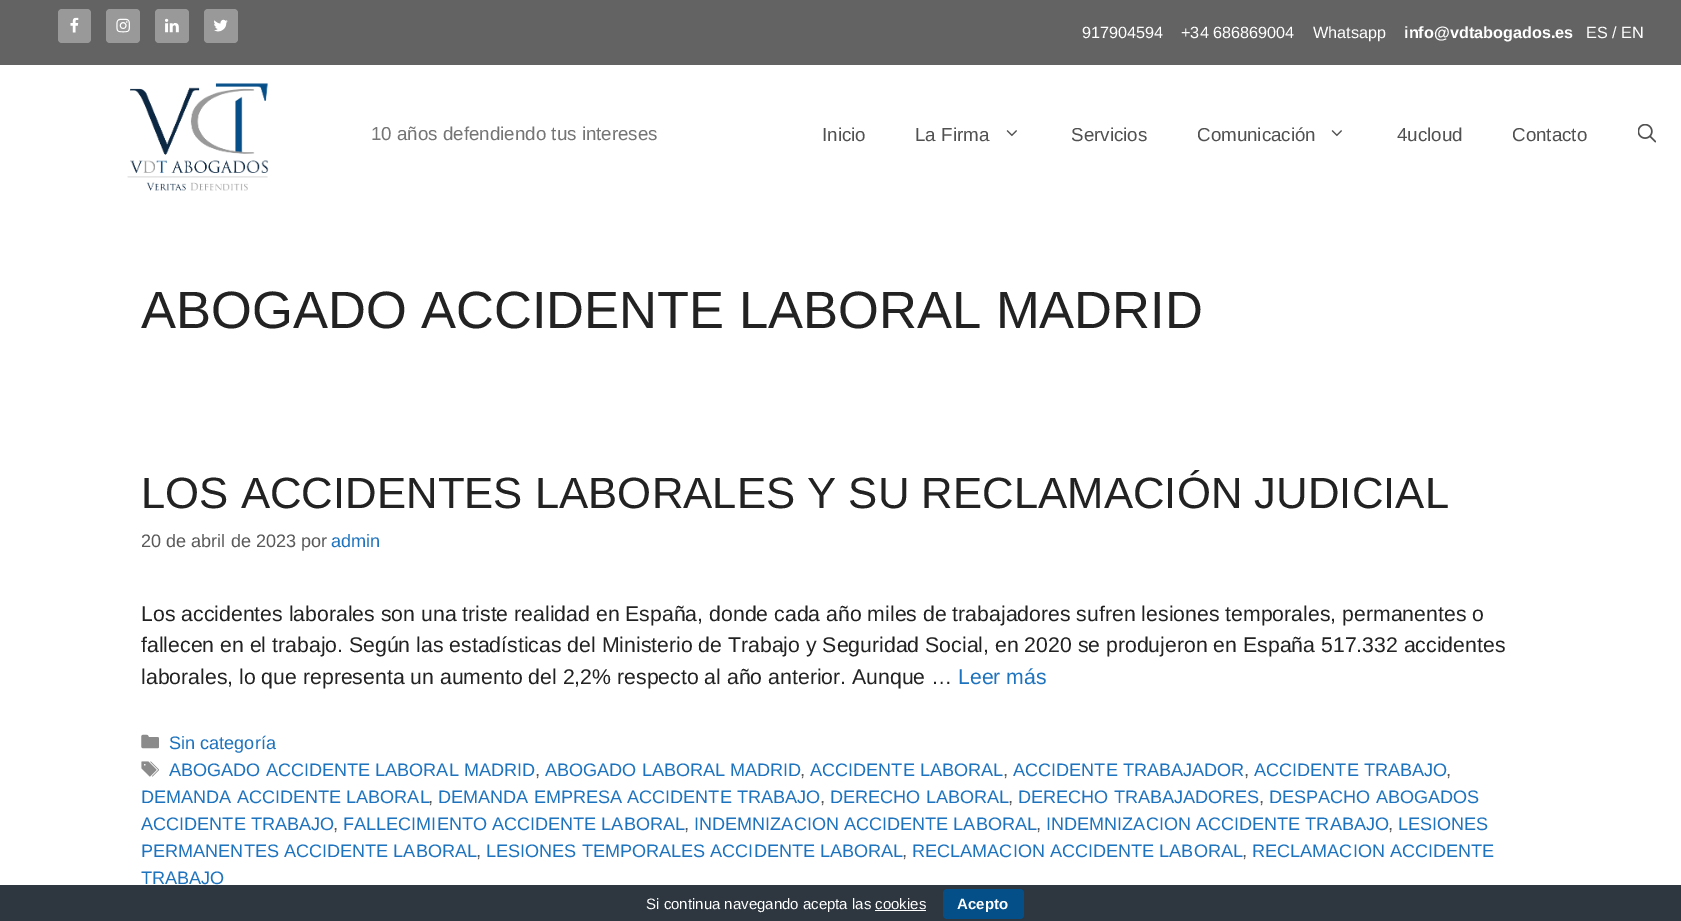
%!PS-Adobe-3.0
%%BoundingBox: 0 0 1681 921
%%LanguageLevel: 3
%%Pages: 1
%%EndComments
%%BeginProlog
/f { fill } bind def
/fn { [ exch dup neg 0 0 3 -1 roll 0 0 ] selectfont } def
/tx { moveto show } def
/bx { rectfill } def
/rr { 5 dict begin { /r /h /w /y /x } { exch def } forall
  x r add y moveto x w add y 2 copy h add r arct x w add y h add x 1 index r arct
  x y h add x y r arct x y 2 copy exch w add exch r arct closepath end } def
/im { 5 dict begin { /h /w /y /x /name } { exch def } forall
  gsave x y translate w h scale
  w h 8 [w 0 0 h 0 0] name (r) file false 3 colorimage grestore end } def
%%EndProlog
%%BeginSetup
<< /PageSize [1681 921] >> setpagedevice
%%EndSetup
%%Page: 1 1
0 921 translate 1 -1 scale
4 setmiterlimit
1 setgray
0 0 1681 921 bx
0.388 setgray
0 0 1681 65 bx
0.6 setgray
58 9 33 34 4 rr f
(image0.raw) 70 17 9 16 im
106 9 34 34 4 rr f
(image1.raw) 116 18 14 15 im
155 9 34 34 4 rr f
(image2.raw) 165 18 14 15 im
204 9 34 34 4 rr f
(image3.raw) 214 19 14 13 im
/LiberationSans-Regular 16.25 fn
1 setgray
(917904594) 1082 38 tx
(+34 686869004) 1181 38 tx
(Whatsapp) 1313 38 tx
/LiberationSans-Bold 16.25 fn
(info@vdtabogados.es) 1404 38 tx
/LiberationSans-Regular 16.25 fn
(ES / EN) 1586 38 tx
(image4.raw) 127 83 142 108 im
/LiberationSans-Regular 18.75 fn
0.459 setgray
(10 años defendiendo tus intereses) 371 140 tx
0.318 setgray
(Inicio) 822 141 tx
(La Firma) 915 141 tx
(image5.raw) 1006 130 11 7 im
(Servicios) 1071 141 tx
(Comunicación) 1197 141 tx
(image5.raw) 1331 130 11 7 im
(4ucloud) 1397 141 tx
(Contacto) 1512 141 tx
(image6.raw) 1638 124 18 19 im
/LiberationSans-Regular 52.5 fn
0.133 setgray
(ABOGADO ACCIDENTE LABORAL MADRID) 141 328 tx
/LiberationSans-Regular 43.75 fn
(LOS ACCIDENTES LABORALES Y SU RECLAMACIÓN JUDICIAL) 141 508 tx
/LiberationSans-Regular 18.1 fn
0.349 setgray
(20 de abril de 2023 por) 141 547 tx
0.118 0.451 0.745 setrgbcolor
(admin) 331 547 tx
/LiberationSans-Regular 21.25 fn
0.133 setgray
(Los accidentes laborales son una triste realidad en España, donde cada año miles de trabajadores sufren lesiones temporales, permanentes o) 141 621 tx
(fallecen en el trabajo. Según las estadísticas del Ministerio de Trabajo y Seguridad Social, en 2020 se produjeron en España 517.332 accidentes) 141 652 tx
(laborales, lo que representa un aumento del 2,2% respecto al año anterior. Aunque …) 141 684 tx
0.118 0.451 0.745 setrgbcolor
(Leer más) 958 684 tx
(image7.raw) 141 734 18 15 im
/LiberationSans-Regular 18.1 fn
(Sin categoría) 169 749 tx
(image8.raw) 141 761 18 16 im
(ABOGADO ACCIDENTE LABORAL MADRID) 169 776 tx
0.349 setgray
(,) 535 776 tx
0.118 0.451 0.745 setrgbcolor
(ABOGADO LABORAL MADRID) 545 776 tx
0.349 setgray
(,) 800 776 tx
0.118 0.451 0.745 setrgbcolor
(ACCIDENTE LABORAL) 810 776 tx
0.349 setgray
(,) 1003 776 tx
0.118 0.451 0.745 setrgbcolor
(ACCIDENTE TRABAJADOR) 1013 776 tx
0.349 setgray
(,) 1244 776 tx
0.118 0.451 0.745 setrgbcolor
(ACCIDENTE TRABAJO) 1254 776 tx
0.349 setgray
(,) 1446 776 tx
0.118 0.451 0.745 setrgbcolor
(DEMANDA ACCIDENTE LABORAL) 141 803 tx
0.349 setgray
(,) 428 803 tx
0.118 0.451 0.745 setrgbcolor
(DEMANDA EMPRESA ACCIDENTE TRABAJO) 438 803 tx
0.349 setgray
(,) 820 803 tx
0.118 0.451 0.745 setrgbcolor
(DERECHO LABORAL) 830 803 tx
0.349 setgray
(,) 1008 803 tx
0.118 0.451 0.745 setrgbcolor
(DERECHO TRABAJADORES) 1018 803 tx
0.349 setgray
(,) 1259 803 tx
0.118 0.451 0.745 setrgbcolor
(DESPACHO ABOGADOS) 1269 803 tx
(ACCIDENTE TRABAJO) 141 830 tx
0.349 setgray
(,) 333 830 tx
0.118 0.451 0.745 setrgbcolor
(FALLECIMIENTO ACCIDENTE LABORAL) 343 830 tx
0.349 setgray
(,) 684 830 tx
0.118 0.451 0.745 setrgbcolor
(INDEMNIZACION ACCIDENTE LABORAL) 694 830 tx
0.349 setgray
(,) 1036 830 tx
0.118 0.451 0.745 setrgbcolor
(INDEMNIZACION ACCIDENTE TRABAJO) 1046 830 tx
0.349 setgray
(,) 1388 830 tx
0.118 0.451 0.745 setrgbcolor
(LESIONES) 1398 830 tx
(PERMANENTES ACCIDENTE LABORAL) 141 857 tx
0.349 setgray
(,) 476 857 tx
0.118 0.451 0.745 setrgbcolor
(LESIONES TEMPORALES ACCIDENTE LABORAL) 486 857 tx
0.349 setgray
(,) 902 857 tx
0.118 0.451 0.745 setrgbcolor
(RECLAMACION ACCIDENTE LABORAL) 912 857 tx
0.349 setgray
(,) 1242 857 tx
0.118 0.451 0.745 setrgbcolor
(RECLAMACION ACCIDENTE) 1252 857 tx
(TRABAJO) 141 884 tx
0.18 0.212 0.247 setrgbcolor
0 885 1681 36 bx
/LiberationSans-Regular 15 fn
1 setgray
(Si continua navegando acepta las cookies) 646 909 tx
0.016 0.31 0.529 setrgbcolor
943 889 81 30 4 rr f
/LiberationSans-Bold 15 fn
1 setgray
(Acepto) 957 909 tx
875 910 51 1 bx
showpage
%%EOF
